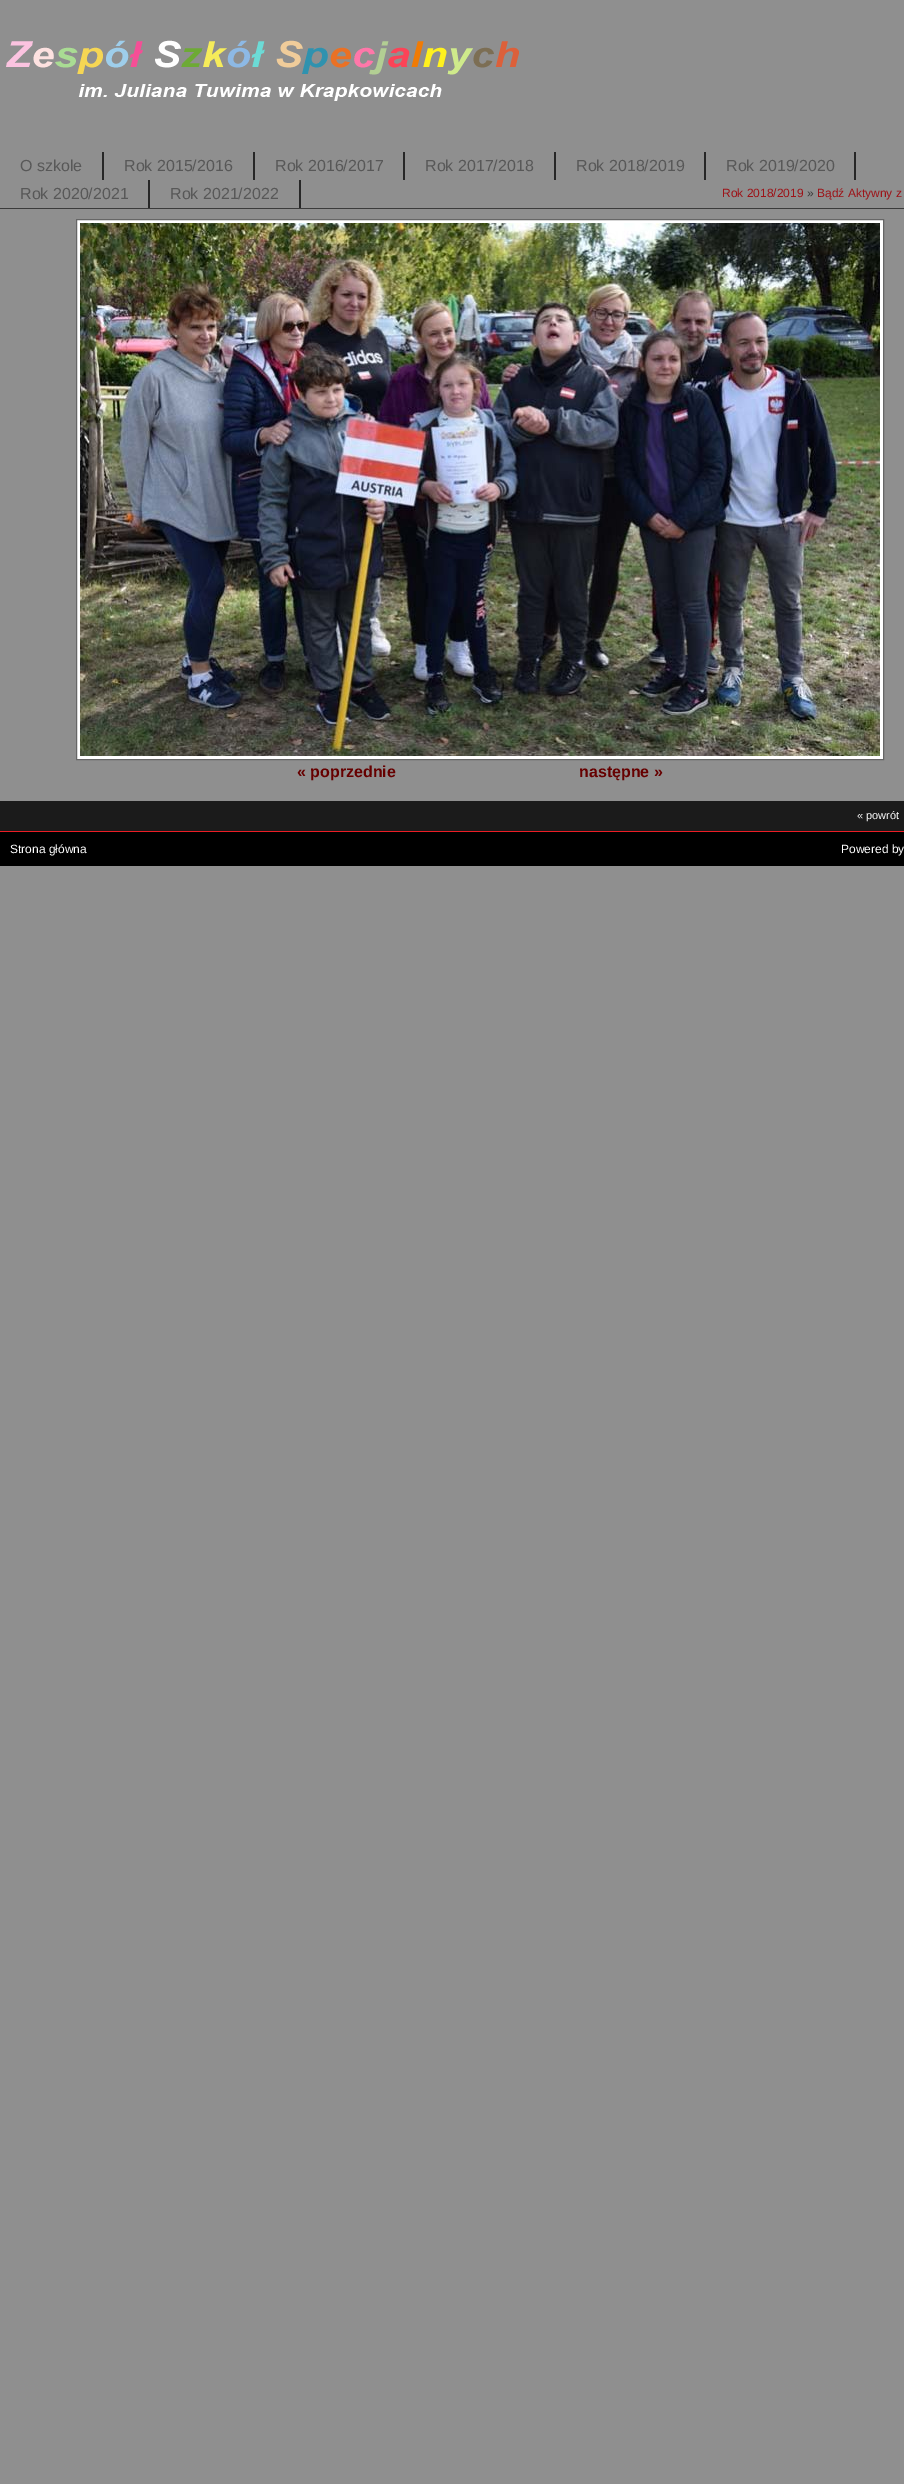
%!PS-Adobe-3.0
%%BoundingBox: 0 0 904 2484
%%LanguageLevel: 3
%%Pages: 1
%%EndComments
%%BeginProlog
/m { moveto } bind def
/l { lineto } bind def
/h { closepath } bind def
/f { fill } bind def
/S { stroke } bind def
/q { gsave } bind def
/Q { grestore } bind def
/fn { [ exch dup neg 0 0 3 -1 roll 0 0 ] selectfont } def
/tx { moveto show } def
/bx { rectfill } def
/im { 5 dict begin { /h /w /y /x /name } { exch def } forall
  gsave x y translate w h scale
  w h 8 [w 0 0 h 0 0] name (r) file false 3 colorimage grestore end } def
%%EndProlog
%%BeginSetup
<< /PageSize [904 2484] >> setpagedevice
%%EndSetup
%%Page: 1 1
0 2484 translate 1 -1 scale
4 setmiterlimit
0.561 setgray
0 0 904 2484 bx
0.231 setgray
0 208 904 1 bx
(image0.raw) 6 40 513 61 im
0.153 setgray
102 152 2 28 bx
/LiberationSans-Regular 16 fn
0.345 setgray
(O szkole) 20 171 tx
0.153 setgray
253 152 2 28 bx
0.345 setgray
(Rok 2015/2016) 124 171 tx
0.153 setgray
403 152 2 28 bx
0.345 setgray
(Rok 2016/2017) 275 171 tx
0.153 setgray
554 152 2 28 bx
0.345 setgray
(Rok 2017/2018) 425 171 tx
0.153 setgray
704 152 2 28 bx
0.345 setgray
(Rok 2018/2019) 576 171 tx
0.153 setgray
854 152 2 28 bx
0.345 setgray
(Rok 2019/2020) 726 171 tx
0.153 setgray
148 180 2 28 bx
0.345 setgray
(Rok 2020/2021) 20 199 tx
0.153 setgray
299 180 2 28 bx
0.345 setgray
(Rok 2021/2022) 170 199 tx
/LiberationSans-Regular 12 fn
0.616 0.075 0.094 setrgbcolor
(Rok 2018/2019) 722 197 tx
0.231 setgray
(») 807 197 tx
0.616 0.075 0.094 setrgbcolor
(Bądź Aktywny z) 817 197 tx
1 setgray
76.5 219.5 m 883.5 219.5 l 883.5 759.5 l 76.5 759.5 l h q f Q
0.4 setgray
S
(image1.raw) 80 223 800 533 im
/LiberationSans-Bold 16 fn
0.4 0 0 setrgbcolor
(« poprzednie) 297 777 tx
(następne ») 579 777 tx
0.106 setgray
0 801 904 30 bx
/LiberationSans-Regular 11 fn
1 setgray
(« powrót) 857 819 tx
0 setgray
0 832 904 34 bx
0.925 0.114 0.145 setrgbcolor
0 831 904 1 bx
/LiberationSans-Regular 12 fn
1 setgray
(Strona główna) 10 853 tx
(Powered by) 841 853 tx
showpage
%%EOF
